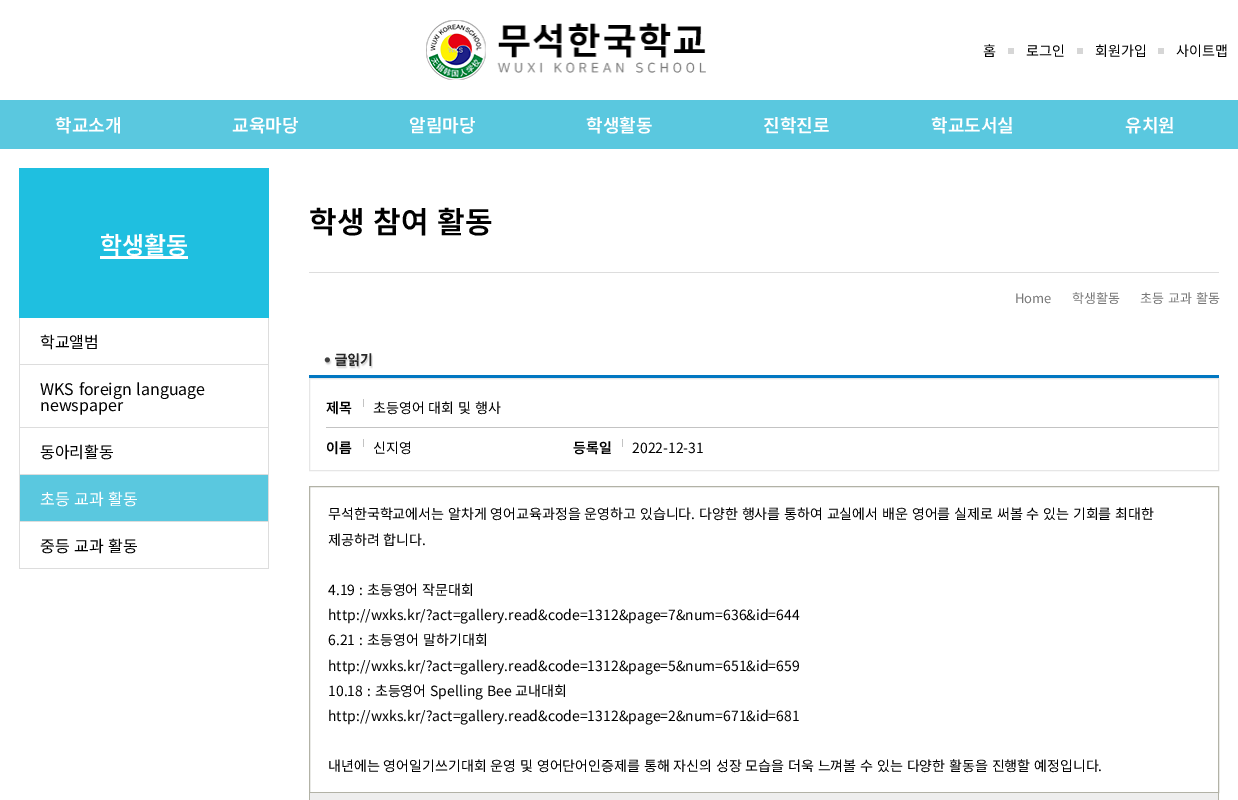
%!PS-Adobe-3.0
%%BoundingBox: 0 0 1238 800
%%LanguageLevel: 3
%%Pages: 1
%%EndComments
%%BeginProlog
/m { moveto } bind def
/fn { [ exch dup neg 0 0 3 -1 roll 0 0 ] selectfont } def
/tx { moveto show } def
/bx { rectfill } def
/im { 5 dict begin { /h /w /y /x /name } { exch def } forall
  gsave x y translate w h scale
  w h 8 [w 0 0 h 0 0] name (r) file false 3 colorimage grestore end } def
%%EndProlog
%%BeginSetup
<< /PageSize [1238 800] >> setpagedevice
%%EndSetup
%%Page: 1 1
0 800 translate 1 -1 scale
4 setmiterlimit
1 setgray
0 0 1238 800 bx
(image0.raw) 426 20 280 60 im
/NotoSansKR-Regular 14 fn
0 setgray
(홈) 983 56 tx
0.839 setgray
1008 48 6 6 bx
0 setgray
(로그인) 1026 56 tx
0.839 setgray
1077 48 6 6 bx
0 setgray
(회원가입) 1095 56 tx
0.839 setgray
1158 48 6 6 bx
0 setgray
(사이트맵) 1176 56 tx
0.353 0.784 0.875 setrgbcolor
0 100 1238 49 bx
/NotoSansKR-SemiBold 18 fn
1 setgray
(학교소개) 55 132 tx
(교육마당) 232 132 tx
(알림마당) 409 132 tx
(학생활동) 586 132 tx
(진학진로) 763 132 tx
(학교도서실) 931 132 tx
(유치원) 1125 132 tx
0.122 0.749 0.878 setrgbcolor
19 168 250 150 bx
1 setgray
100 256 88 3 bx
/NotoSansKR-SemiBold 24 fn
(학생활동) 100 254 tx
0.867 setgray
268 318 1 251 bx
19 318 1 251 bx
20 364 248 1 bx
/NotoSansKR-Regular 16 fn
0 setgray
(학교앨범) 40 348 tx
0.867 setgray
20 427 248 1 bx
0 setgray
40 395 m 1 0 32 (WKS foreign language) widthshow
(newspaper) 40 411 tx
0.867 setgray
20 474 248 1 bx
0 setgray
(동아리활동) 40 458 tx
0.353 0.784 0.875 setrgbcolor
20 475 248 46 bx
0.867 setgray
20 521 248 1 bx
1 setgray
40 505 m 1 0 32 (초등 교과 활동) widthshow
0.867 setgray
20 568 248 1 bx
0 setgray
40 552 m 1 0 32 (중등 교과 활동) widthshow
0.867 setgray
309 272 910 1 bx
/NotoSansKR-SemiBold 30 fn
0 setgray
309 233 m 2 0 32 (학생 참여 활동) widthshow
/NotoSansKR-Regular 13 fn
0.467 setgray
(Home) 1015 303 tx
(학생활동) 1072 303 tx
1140 303 m 1 0 32 (초등 교과 활동) widthshow
(image1.raw) 324 353 49 16 im
0.004 0.467 0.757 setrgbcolor
309 375 910 3 bx
0.902 setgray
309.5 378.5 909 92 rectstroke
0.765 setgray
326 427 892 1 bx
363 399 1 8 bx
/NotoSansKR-SemiBold 14 fn
0 setgray
(제목) 326 413 tx
/NotoSansKR-Regular 14 fn
373 413 m 0.75 0 32 (초등영어 대회 및 행사) widthshow
0.765 setgray
363 439 1 8 bx
/NotoSansKR-SemiBold 14 fn
0 setgray
(이름) 326 453 tx
/NotoSansKR-Regular 14 fn
(신지영) 373 453 tx
0.765 setgray
622 439 1 8 bx
/NotoSansKR-SemiBold 14 fn
0 setgray
(등록일) 573 453 tx
/NotoSansKR-Regular 14 fn
(2022-12-31) 632 453 tx
0.698 0.698 0.651 setrgbcolor
309.5 486.5 909 306 rectstroke
0 setgray
328 519 m 0.75 0 32 (무석한국학교에서는 알차게 영어교육과정을 운영하고 있습니다. 다양한 행사를 통하여 교실에서 배운 영어를 실제로 써볼 수 있는 기회를 최대한) widthshow
328 545 m 0.75 0 32 (제공하려 합니다.) widthshow
328 595 m 0.75 0 32 (4.19 : 초등영어 작문대회) widthshow
(http://wxks.kr/?act=gallery.read&code=1312&page=7&num=636&id=644) 328 620 tx
328 645 m 1 0 32 (6.21 : 초등영어 말하기대회) widthshow
(http://wxks.kr/?act=gallery.read&code=1312&page=5&num=651&id=659) 328 671 tx
328 696 m 0.75 0 32 (10.18 : 초등영어 Spelling Bee 교내대회) widthshow
(http://wxks.kr/?act=gallery.read&code=1312&page=2&num=671&id=681) 328 721 tx
328 771 m 0.75 0 32 (내년에는 영어일기쓰기대회 운영 및 영어단어인증제를 통해 자신의 성장 모습을 더욱 느껴볼 수 있는 다양한 활동을 진행할 예정입니다.) widthshow
0.933 setgray
309 793 910 7 bx
0.698 0.698 0.651 setrgbcolor
1218 793 1 7 bx
309 793 1 7 bx
showpage
%%EOF
